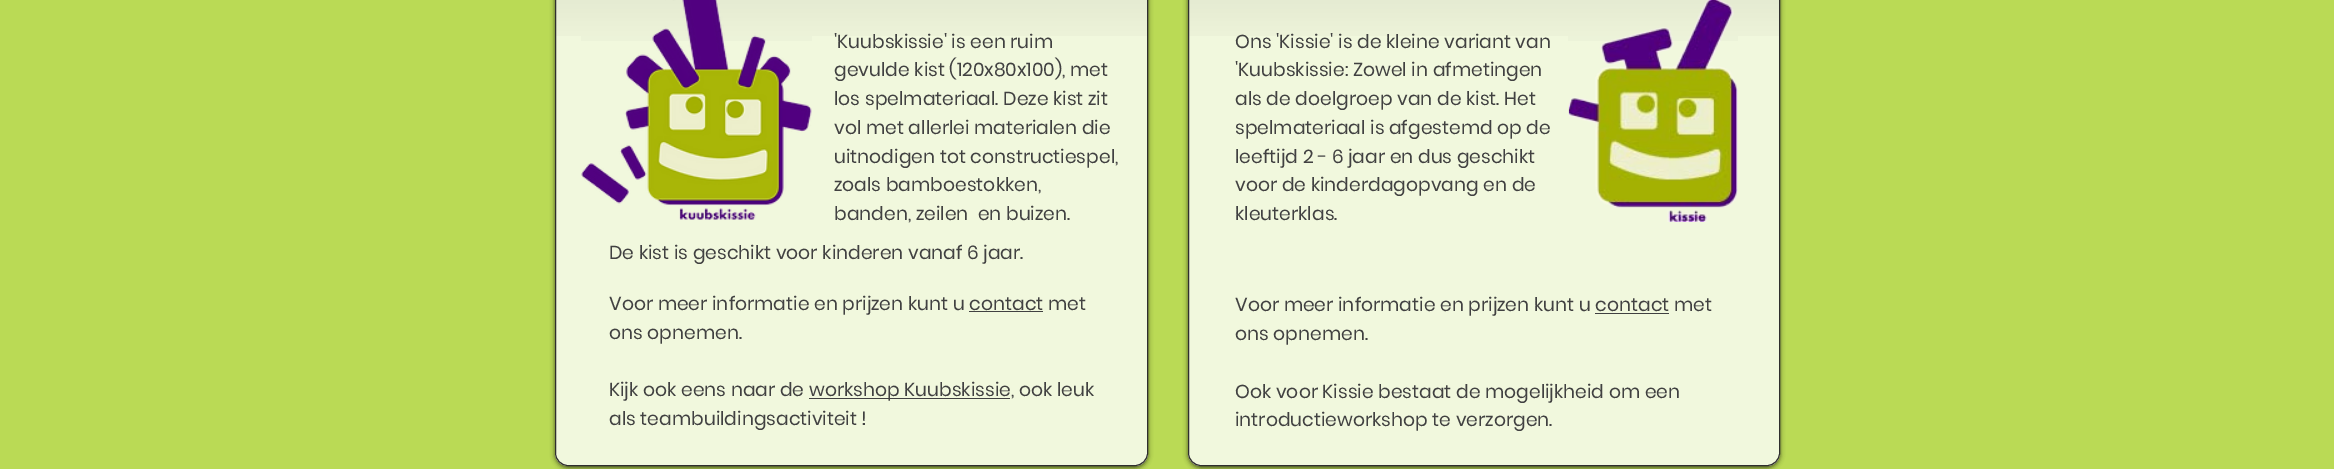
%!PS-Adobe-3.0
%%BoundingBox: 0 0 2334 469
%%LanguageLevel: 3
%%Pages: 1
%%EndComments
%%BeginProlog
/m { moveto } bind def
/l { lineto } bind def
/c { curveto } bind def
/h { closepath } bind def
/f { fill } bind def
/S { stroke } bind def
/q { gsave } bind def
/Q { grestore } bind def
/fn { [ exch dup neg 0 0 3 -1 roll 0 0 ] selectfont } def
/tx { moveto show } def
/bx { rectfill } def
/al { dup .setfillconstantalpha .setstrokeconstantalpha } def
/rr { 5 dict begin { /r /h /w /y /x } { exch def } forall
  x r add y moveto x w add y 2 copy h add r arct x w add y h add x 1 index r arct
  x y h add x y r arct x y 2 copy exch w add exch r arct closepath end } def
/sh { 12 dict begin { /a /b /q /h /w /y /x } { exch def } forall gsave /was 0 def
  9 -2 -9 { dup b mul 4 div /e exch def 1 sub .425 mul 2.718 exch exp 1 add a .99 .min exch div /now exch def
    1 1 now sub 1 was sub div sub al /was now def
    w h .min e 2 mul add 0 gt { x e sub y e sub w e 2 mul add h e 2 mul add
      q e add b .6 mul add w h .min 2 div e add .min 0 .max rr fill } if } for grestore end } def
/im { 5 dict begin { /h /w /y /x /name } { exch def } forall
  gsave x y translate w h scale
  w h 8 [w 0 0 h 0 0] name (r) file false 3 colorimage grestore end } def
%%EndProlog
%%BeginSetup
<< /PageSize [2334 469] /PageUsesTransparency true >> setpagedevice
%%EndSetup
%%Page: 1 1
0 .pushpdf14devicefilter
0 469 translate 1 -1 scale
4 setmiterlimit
0.729 0.855 0.333 setrgbcolor
0 0 2334 469 bx
q
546 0 m 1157 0 l 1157 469 l 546 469 l h 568 -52 m 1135 -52 l 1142 -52 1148 -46 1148 -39 c 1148 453 l 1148 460 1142 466 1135 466 c 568 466 l 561 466 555 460 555 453 c 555 -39 l 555 -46 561 -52 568 -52 c h eoclip newpath
0 setgray
555 -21 593 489 13 2.5 0.6 sh
Q
0.8 al
1 setgray
555 -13 593 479 13 rr f
1 al
(image0.raw) 556 0 591 36 im
0.184 0.18 0.18 setrgbcolor
555.5 -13.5 592 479 12.5 rr S
(image1.raw) 581 0 231 220 im
/Poppins-Regular 18.75 fn
0.255 setgray
('Kuubskissie' is een ruim) 834 48 tx
(gevulde kist \(120x80x100\), met) 834 76 tx
(los spelmateriaal. Deze kist zit) 834 105 tx
(vol met allerlei materialen die) 834 134 tx
(uitnodigen tot constructiespel,) 834 163 tx
(zoals bamboestokken,) 834 191 tx
(banden, zeilen  en buizen.) 834 220 tx
q
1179 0 m 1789 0 l 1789 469 l 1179 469 l h 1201 -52 m 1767 -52 l 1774 -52 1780 -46 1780 -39 c 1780 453 l 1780 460 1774 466 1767 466 c 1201 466 l 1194 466 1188 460 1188 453 c 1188 -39 l 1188 -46 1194 -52 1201 -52 c h eoclip newpath
0 setgray
1188 -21 592 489 13 2.5 0.6 sh
Q
0.8 al
1 setgray
1188 -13 592 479 13 rr f
1 al
(image2.raw) 1189 0 590 36 im
0.184 0.18 0.18 setrgbcolor
1188.5 -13.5 591 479 12.5 rr S
0.255 setgray
(Ons 'Kissie' is de kleine variant van) 1235 48 tx
('Kuubskissie: Zowel in afmetingen) 1235 76 tx
(als de doelgroep van de kist. Het) 1235 105 tx
(spelmateriaal is afgestemd op de) 1235 134 tx
(leeftijd 2 - 6 jaar en dus geschikt) 1235 163 tx
(voor de kinderdagopvang en de) 1235 191 tx
(kleuterklas.) 1235 220 tx
(image3.raw) 1568 0 170 222 im
(De kist is geschikt voor kinderen vanaf 6 jaar.) 609 259 tx
(Voor meer informatie en prijzen kunt u contact met) 609 310 tx
969 311 74 1 bx
(ons opnemen.) 609 339 tx
(Kijk ook eens naar de) 609 396 tx
809 398 201 1 bx
(workshop Kuubskissie, ook leuk) 809 396 tx
(als teambuildingsactiviteit !) 609 425 tx
(Voor meer informatie en prijzen kunt u contact met) 1235 311 tx
1595 313 74 1 bx
(ons opnemen.) 1235 340 tx
(Ook voor Kissie bestaat de mogelijkheid om een) 1235 398 tx
(introductieworkshop te verzorgen.) 1235 426 tx
.poppdf14devicefilter showpage
%%EOF
